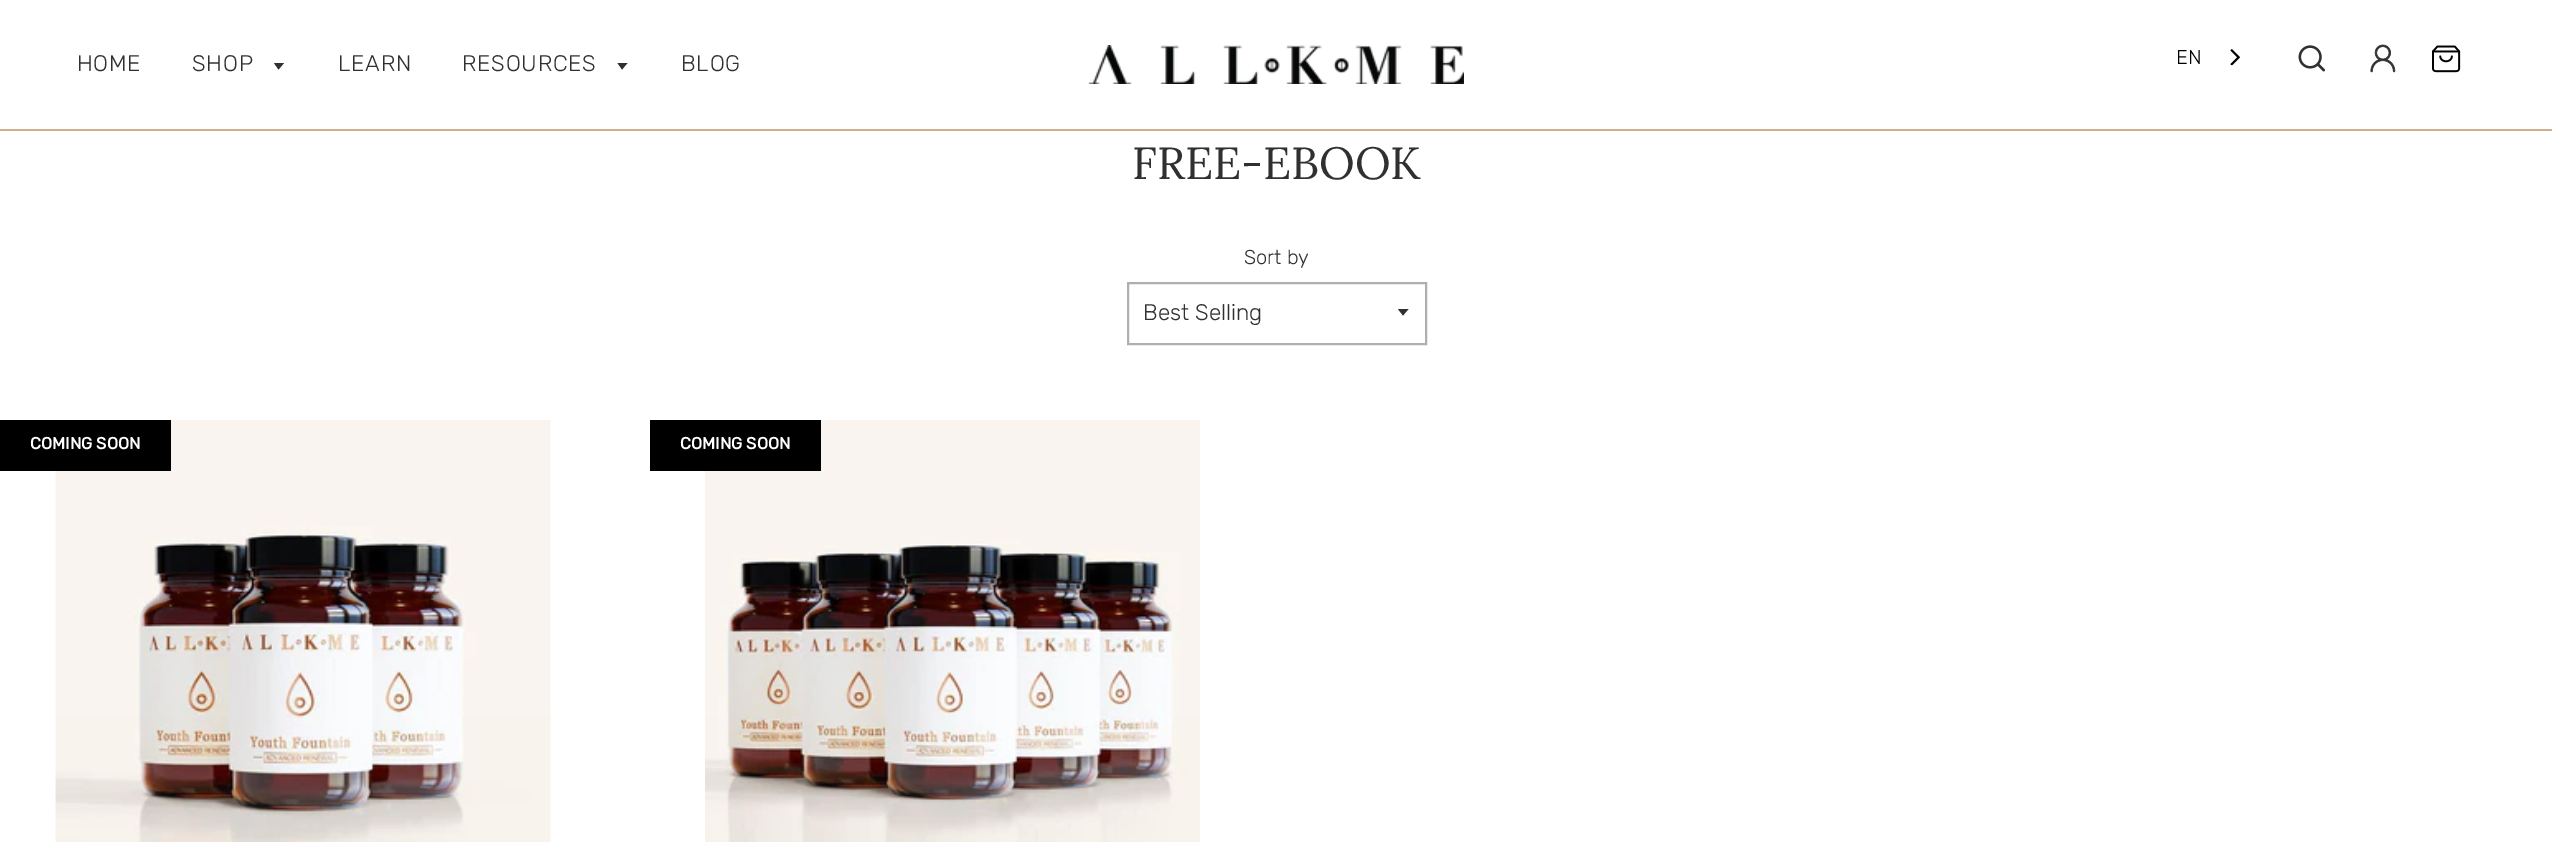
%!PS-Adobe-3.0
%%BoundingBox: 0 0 2552 842
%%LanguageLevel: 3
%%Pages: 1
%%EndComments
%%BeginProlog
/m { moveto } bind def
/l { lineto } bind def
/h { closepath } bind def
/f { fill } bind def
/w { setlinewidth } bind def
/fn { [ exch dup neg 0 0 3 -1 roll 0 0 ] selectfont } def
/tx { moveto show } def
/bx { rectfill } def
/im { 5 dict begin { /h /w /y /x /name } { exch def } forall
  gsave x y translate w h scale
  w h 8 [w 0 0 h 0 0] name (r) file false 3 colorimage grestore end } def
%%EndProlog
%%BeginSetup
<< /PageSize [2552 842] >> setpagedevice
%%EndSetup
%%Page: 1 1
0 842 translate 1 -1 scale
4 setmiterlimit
1 setgray
0 0 2552 842 bx
0.812 0.686 0.553 setrgbcolor
0 129 2552 2 bx
/Rubik-Light 22.5 fn
0.192 0.184 0.188 setrgbcolor
77 71 m 0.75 0 (HOME) ashow
192 71 m 0.75 0 (SHOP) ashow
274 63 m 278.5 69.5 l 284 63 l h f
338 71 m 0.75 0 (LEARN) ashow
462 71 m 0.75 0 (RESOURCES) ashow
617.5 63 m 622 69.5 l 627.5 63 l h f
681 71 m 0.75 0 (BLOG) ashow
(image0.raw) 1088 45 376 39 im
/Rubik-Light 20 fn
0 setgray
(EN) 2176 64 tx
(image1.raw) 2230 49 10 17 im
(image2.raw) 2298 45 28 27 im
(image3.raw) 2370 44 26 29 im
(image4.raw) 2432 45 29 28 im
/Lora-Regular 45 fn
0.192 0.184 0.188 setrgbcolor
(FREE-EBOOK) 1132 179 tx
/Rubik-Light 20 fn
(Sort by) 1244 264 tx
1398 309 m 1403 315.5 l 1408.5 309 l h f
0.694 0.682 0.69 setrgbcolor
2 w
1128 283 298 61 rectstroke
/Rubik-Light 22.5 fn
0.192 0.184 0.188 setrgbcolor
(Best Selling) 1143 320 tx
(image5.raw) 55 420 496 422 im
0 setgray
0 420 171 51 bx
/Rubik-Bold 16.5 fn
1 setgray
(COMING SOON) 30 449 tx
(image6.raw) 705 420 495 422 im
0 setgray
650 420 171 51 bx
1 setgray
(COMING SOON) 680 449 tx
showpage
%%EOF
